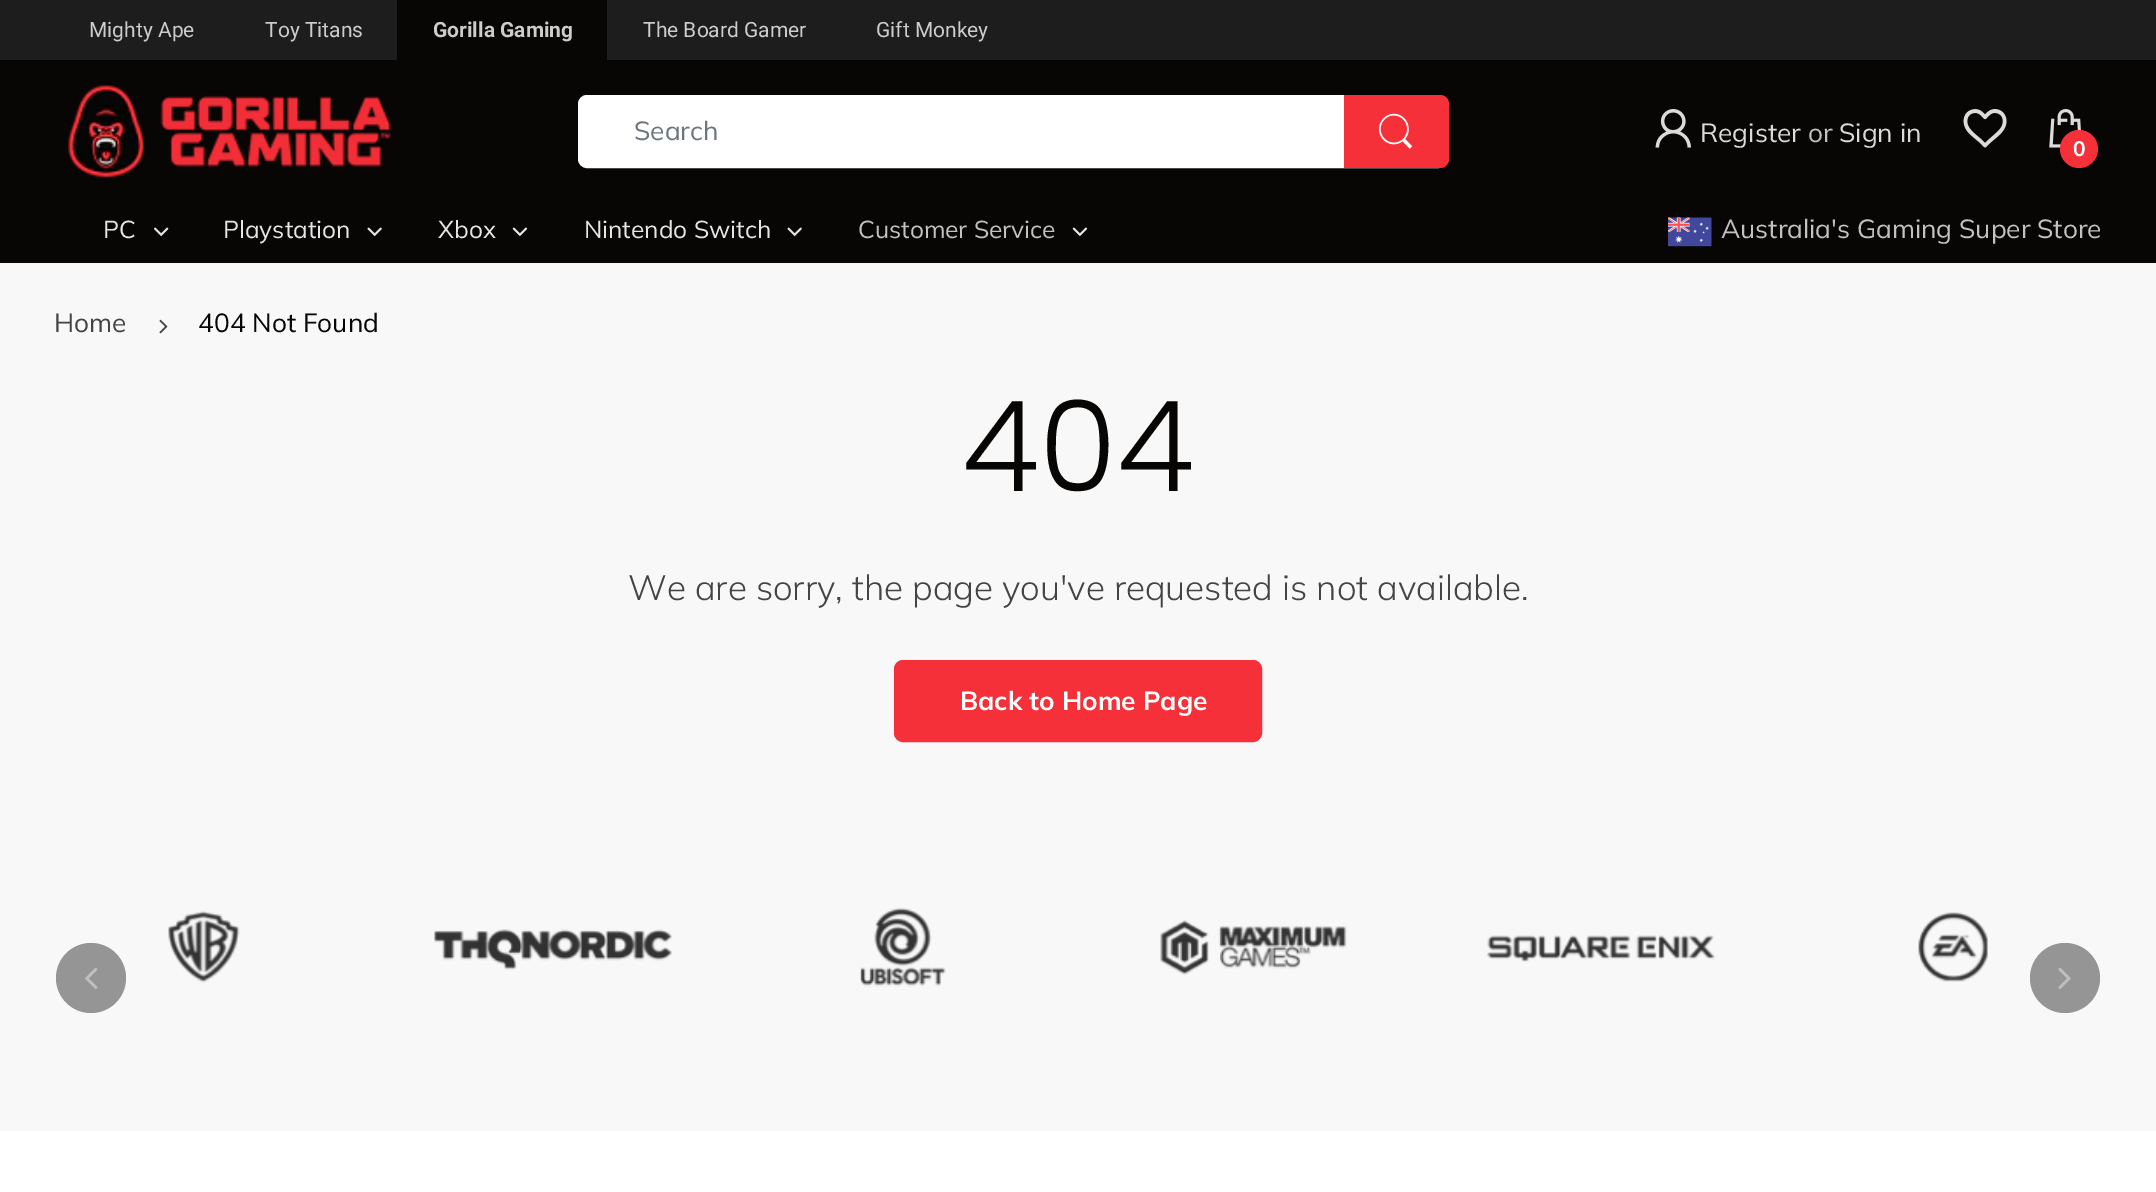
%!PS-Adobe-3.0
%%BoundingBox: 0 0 2156 1192
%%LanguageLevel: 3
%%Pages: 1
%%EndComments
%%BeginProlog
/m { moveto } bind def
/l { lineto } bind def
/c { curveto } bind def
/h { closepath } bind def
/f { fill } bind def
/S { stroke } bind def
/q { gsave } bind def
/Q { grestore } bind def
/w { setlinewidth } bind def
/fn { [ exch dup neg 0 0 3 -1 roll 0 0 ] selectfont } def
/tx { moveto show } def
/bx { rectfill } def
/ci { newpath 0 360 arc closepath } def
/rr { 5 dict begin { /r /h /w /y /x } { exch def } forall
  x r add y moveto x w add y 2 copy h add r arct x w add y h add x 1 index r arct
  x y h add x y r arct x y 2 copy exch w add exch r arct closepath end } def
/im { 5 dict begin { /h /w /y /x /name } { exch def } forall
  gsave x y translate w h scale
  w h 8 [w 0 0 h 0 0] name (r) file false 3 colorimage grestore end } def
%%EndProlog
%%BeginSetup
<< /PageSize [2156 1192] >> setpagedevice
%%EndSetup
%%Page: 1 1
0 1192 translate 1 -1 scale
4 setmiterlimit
1 setgray
0 0 2156 1192 bx
0.973 setgray
0 263 2156 868 bx
0.031 0.024 0.02 setrgbcolor
0 60 2156 203 bx
0.114 setgray
0 0 2156 60 bx
/Roboto-Regular 21 fn
0.8 setgray
(Mighty Ape) 89 37 tx
(Toy Titans) 265 37 tx
0.027 0.024 0.016 setrgbcolor
397 0 210 60 bx
/Roboto-Bold 21 fn
0.8 setgray
(Gorilla Gaming) 433 37 tx
/Roboto-Regular 21 fn
(The Board Gamer) 643 37 tx
(Gift Monkey) 876 37 tx
(image0.raw) 67 85 324 93 im
1 setgray
580 97 865 69 7 rr q f Q
4 w
S
/Muli-Regular 26.25 fn
0.424 0.459 0.49 setrgbcolor
(Search) 634 140 tx
0.961 0.188 0.22 setrgbcolor
1344 95 m 1440 95 l 1445 95 1449 99 1449 104 c 1449 159 l 1449 164 1445 168 1440 168 c 1344 168 l h f
(image1.raw) 1379 113 34 36 im
(image2.raw) 1655 109 36 39 im
0.859 setgray
(Register) 1700 142 tx
0.761 setgray
(or) 1808 142 tx
0.859 setgray
(Sign in) 1839 142 tx
(image3.raw) 1963 109 44 39 im
(image4.raw) 2049 109 32 39 im
0.961 0.188 0.22 setrgbcolor
2079 149 19 ci f
/Muli-Bold 21 fn
1 setgray
(0) 2073 156 tx
/Muli-Regular 24.5 fn
0.902 setgray
(PC) 103 238 tx
(image5.raw) 154 227 15 10 im
(Playstation) 223 238 tx
(image6.raw) 367 227 15 10 im
(Xbox) 438 238 tx
(image7.raw) 512 227 15 10 im
(Nintendo Switch) 584 238 tx
(image6.raw) 787 227 15 10 im
0.761 setgray
(Customer Service) 858 238 tx
(image7.raw) 1072 227 15 10 im
(image8.raw) 1668 217 44 30 im
/Muli-Regular 26.25 fn
(Australia's Gaming Super Store) 1721 238 tx
0.267 setgray
(Home) 54 332 tx
(image9.raw) 159 319 9 15 im
0.031 0.024 0.02 setrgbcolor
(404 Not Found) 198 332 tx
/Poppins-Light 126 fn
(404) 962 491 tx
/Muli-Light 35 fn
0.267 setgray
(We are sorry, the page you've requested is not available.) 628 600 tx
0.961 0.188 0.22 setrgbcolor
895 661 366 80 8 rr q f Q
2 w
S
/Muli-Bold 26.25 fn
1 setgray
(Back to Home Page) 960 710 tx
(image10.raw) 168 911 72 72 im
(image11.raw) 434 929 238 41 im
(image12.raw) 860 908 86 79 im
(image13.raw) 1160 920 187 55 im
(image14.raw) 1487 935 228 27 im
(image15.raw) 1918 912 70 70 im
0.584 setgray
91 978 35 ci f
(image16.raw) 85 967 13 22 im
2065 978 35 ci f
(image17.raw) 2058 967 13 22 im
showpage
%%EOF
